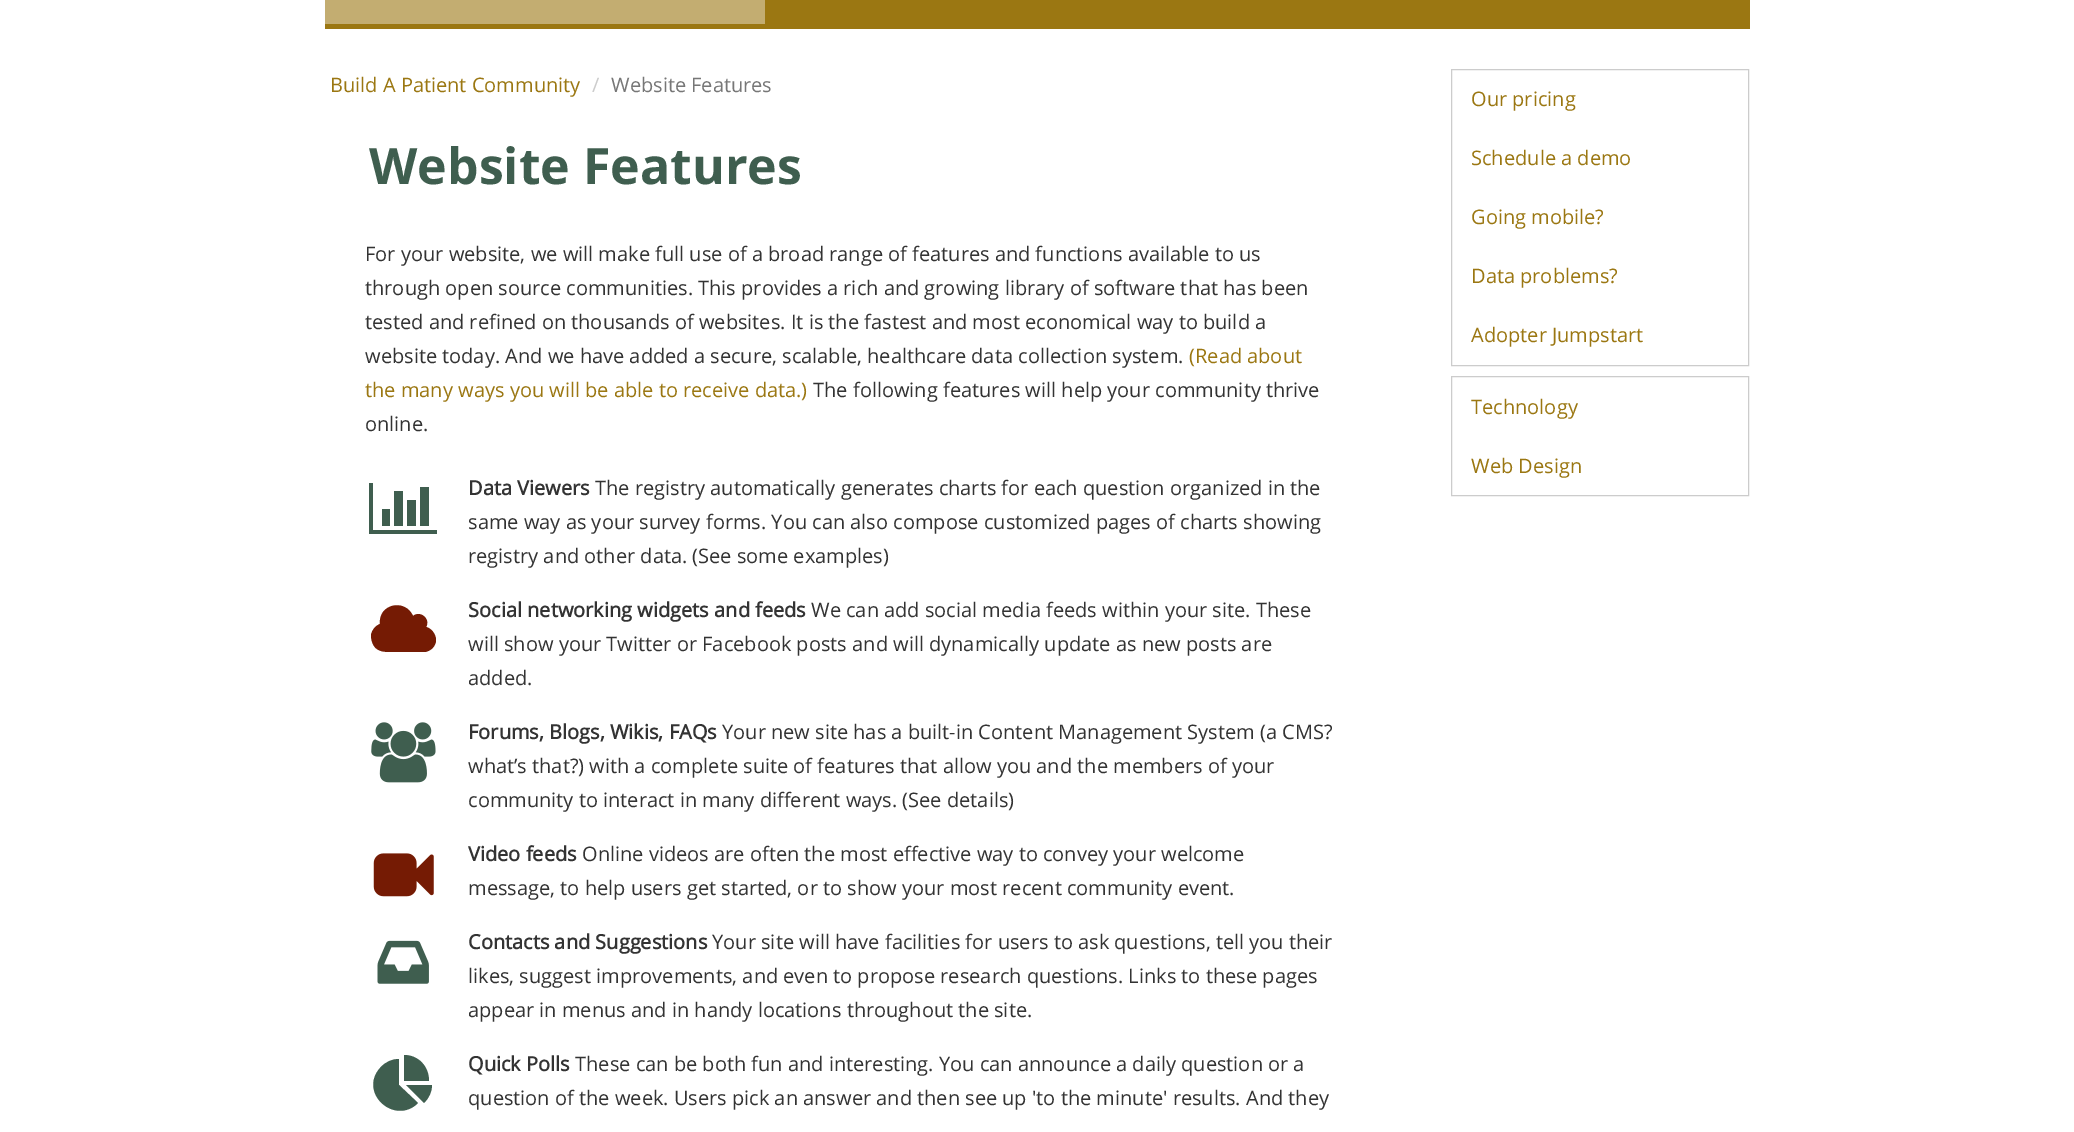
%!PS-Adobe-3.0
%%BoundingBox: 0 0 2074 1132
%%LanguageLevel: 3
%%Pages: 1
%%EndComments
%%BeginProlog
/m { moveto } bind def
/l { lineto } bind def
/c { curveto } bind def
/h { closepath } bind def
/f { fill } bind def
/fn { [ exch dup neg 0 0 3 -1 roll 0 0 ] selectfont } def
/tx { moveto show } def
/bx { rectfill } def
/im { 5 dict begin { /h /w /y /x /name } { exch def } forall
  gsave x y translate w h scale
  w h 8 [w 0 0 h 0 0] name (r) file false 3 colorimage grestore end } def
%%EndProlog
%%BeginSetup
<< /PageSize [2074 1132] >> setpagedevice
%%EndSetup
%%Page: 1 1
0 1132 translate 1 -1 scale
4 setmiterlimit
1 setgray
0 0 2074 1132 bx
0.608 0.467 0.071 setrgbcolor
765 0 985 29 bx
0.765 0.678 0.443 setrgbcolor
325 0 440 24 bx
0.608 0.467 0.071 setrgbcolor
325 24 440 5 bx
/OpenSans-Regular 20 fn
(Build A Patient Community) 330 92 tx
0.8 setgray
(/) 592 92 tx
0.467 setgray
(Website Features) 611 92 tx
/OpenSans-Bold 50 fn
0.247 0.369 0.31 setrgbcolor
(Website Features) 369 184 tx
/OpenSans-Regular 20 fn
0.2 setgray
(For your website, we will make full use of a broad range of features and functions available to us) 365 261 tx
(through open source communities. This provides a rich and growing library of software that has been) 365 295 tx
(tested and refined on thousands of websites. It is the fastest and most economical way to build a) 365 329 tx
(website today. And we have added a secure, scalable, healthcare data collection system.) 365 363 tx
0.608 0.467 0.071 setrgbcolor
(\(Read about) 1189 363 tx
(the many ways you will be able to receive data.\)) 365 397 tx
0.2 setgray
(The following features will help your community thrive) 813 397 tx
(online.) 365 431 tx
0.247 0.369 0.31 setrgbcolor
390 509 m 390 526 l 382 526 l 382 509 l h 403 491 m 403 526 l 394 526 l 394 491 l h 437 530 m 437 534 l 369 534 l 369 483 l 373 483 l 373 530 l h 416 500 m 416 526 l 407 526 l 407 500 l h 429 487 m 429 526 l 420 526 l 420 487 l h f
/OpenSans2-Bold 20 fn
0.2 setgray
(Data Viewers) 468 495 tx
/OpenSans-Regular 20 fn
(The registry automatically generates charts for each question organized in the) 595 495 tx
(same way as your survey forms. You can also compose customized pages of charts showing) 468 529 tx
(registry and other data. \(See some examples\)) 468 563 tx
0.459 0.106 0.016 setrgbcolor
436 640 m 436 646 431 651 425 652 c 392 652 l 385 652 378 652 374 646 c 372 643 371 639 371 635 c 372 630 375 626 380 624 c 378 604 405 598 413 616 c 420 610 431 619 426 627 c 431 628 436 634 436 640 c h f
/OpenSans2-Bold 20 fn
0.2 setgray
(Social networking widgets and feeds) 468 617 tx
/OpenSans-Regular 20 fn
(We can add social media feeds within your site. These) 811 617 tx
(will show your Twitter or Facebook posts and will dynamically update as new posts are) 468 651 tx
(added.) 468 685 tx
(image0.raw) 371 722 65 61 im
/OpenSans2-Bold 20 fn
(Forums, Blogs, Wikis, FAQs) 468 739 tx
/OpenSans-Regular 20 fn
(Your new site has a built-in Content Management System \(a CMS?) 722 739 tx
(what’s that?\) with a complete suite of features that allow you and the members of your) 468 773 tx
(community to interact in many different ways. \(See details\)) 468 807 tx
(image1.raw) 373 853 61 44 im
/OpenSans2-Bold 20 fn
(Video feeds) 468 861 tx
/OpenSans-Regular 20 fn
(Online videos are often the most effective way to convey your welcome) 582 861 tx
(message, to help users get started, or to show your most recent community event.) 468 895 tx
(image2.raw) 377 940 52 44 im
/OpenSans2-Bold 20 fn
(Contacts and Suggestions) 468 949 tx
/OpenSans-Regular 20 fn
(Your site will have facilities for users to ask questions, tell you their) 712 949 tx
(likes, suggest improvements, and even to propose research questions. Links to these pages) 468 983 tx
(appear in menus and in handy locations throughout the site.) 468 1017 tx
0.247 0.369 0.31 setrgbcolor
399 1085 m 418 1103 l 395 1126 358 1093 380 1068 c 385 1062 392 1059 399 1059 c h 406 1085 m 432 1085 l 432 1092 429 1098 424 1103 c h 429 1081 m 404 1081 l 404 1055 l 418 1055 429 1066 429 1081 c h f
/OpenSans2-Bold 20 fn
0.2 setgray
(Quick Polls) 468 1071 tx
/OpenSans-Regular 20 fn
(These can be both fun and interesting. You can announce a daily question or a) 575 1071 tx
(question of the week. Users pick an answer and then see up 'to the minute' results. And they) 468 1105 tx
0.8 setgray
1451.5 69.5 297 296 rectstroke
0.608 0.467 0.071 setrgbcolor
(Our pricing) 1471 106 tx
(Schedule a demo) 1471 165 tx
(Going mobile?) 1471 224 tx
(Data problems?) 1471 283 tx
(Adopter Jumpstart) 1471 342 tx
0.8 setgray
1451.5 376.5 297 119 rectstroke
0.608 0.467 0.071 setrgbcolor
(Technology) 1471 414 tx
(Web Design) 1471 473 tx
showpage
%%EOF
